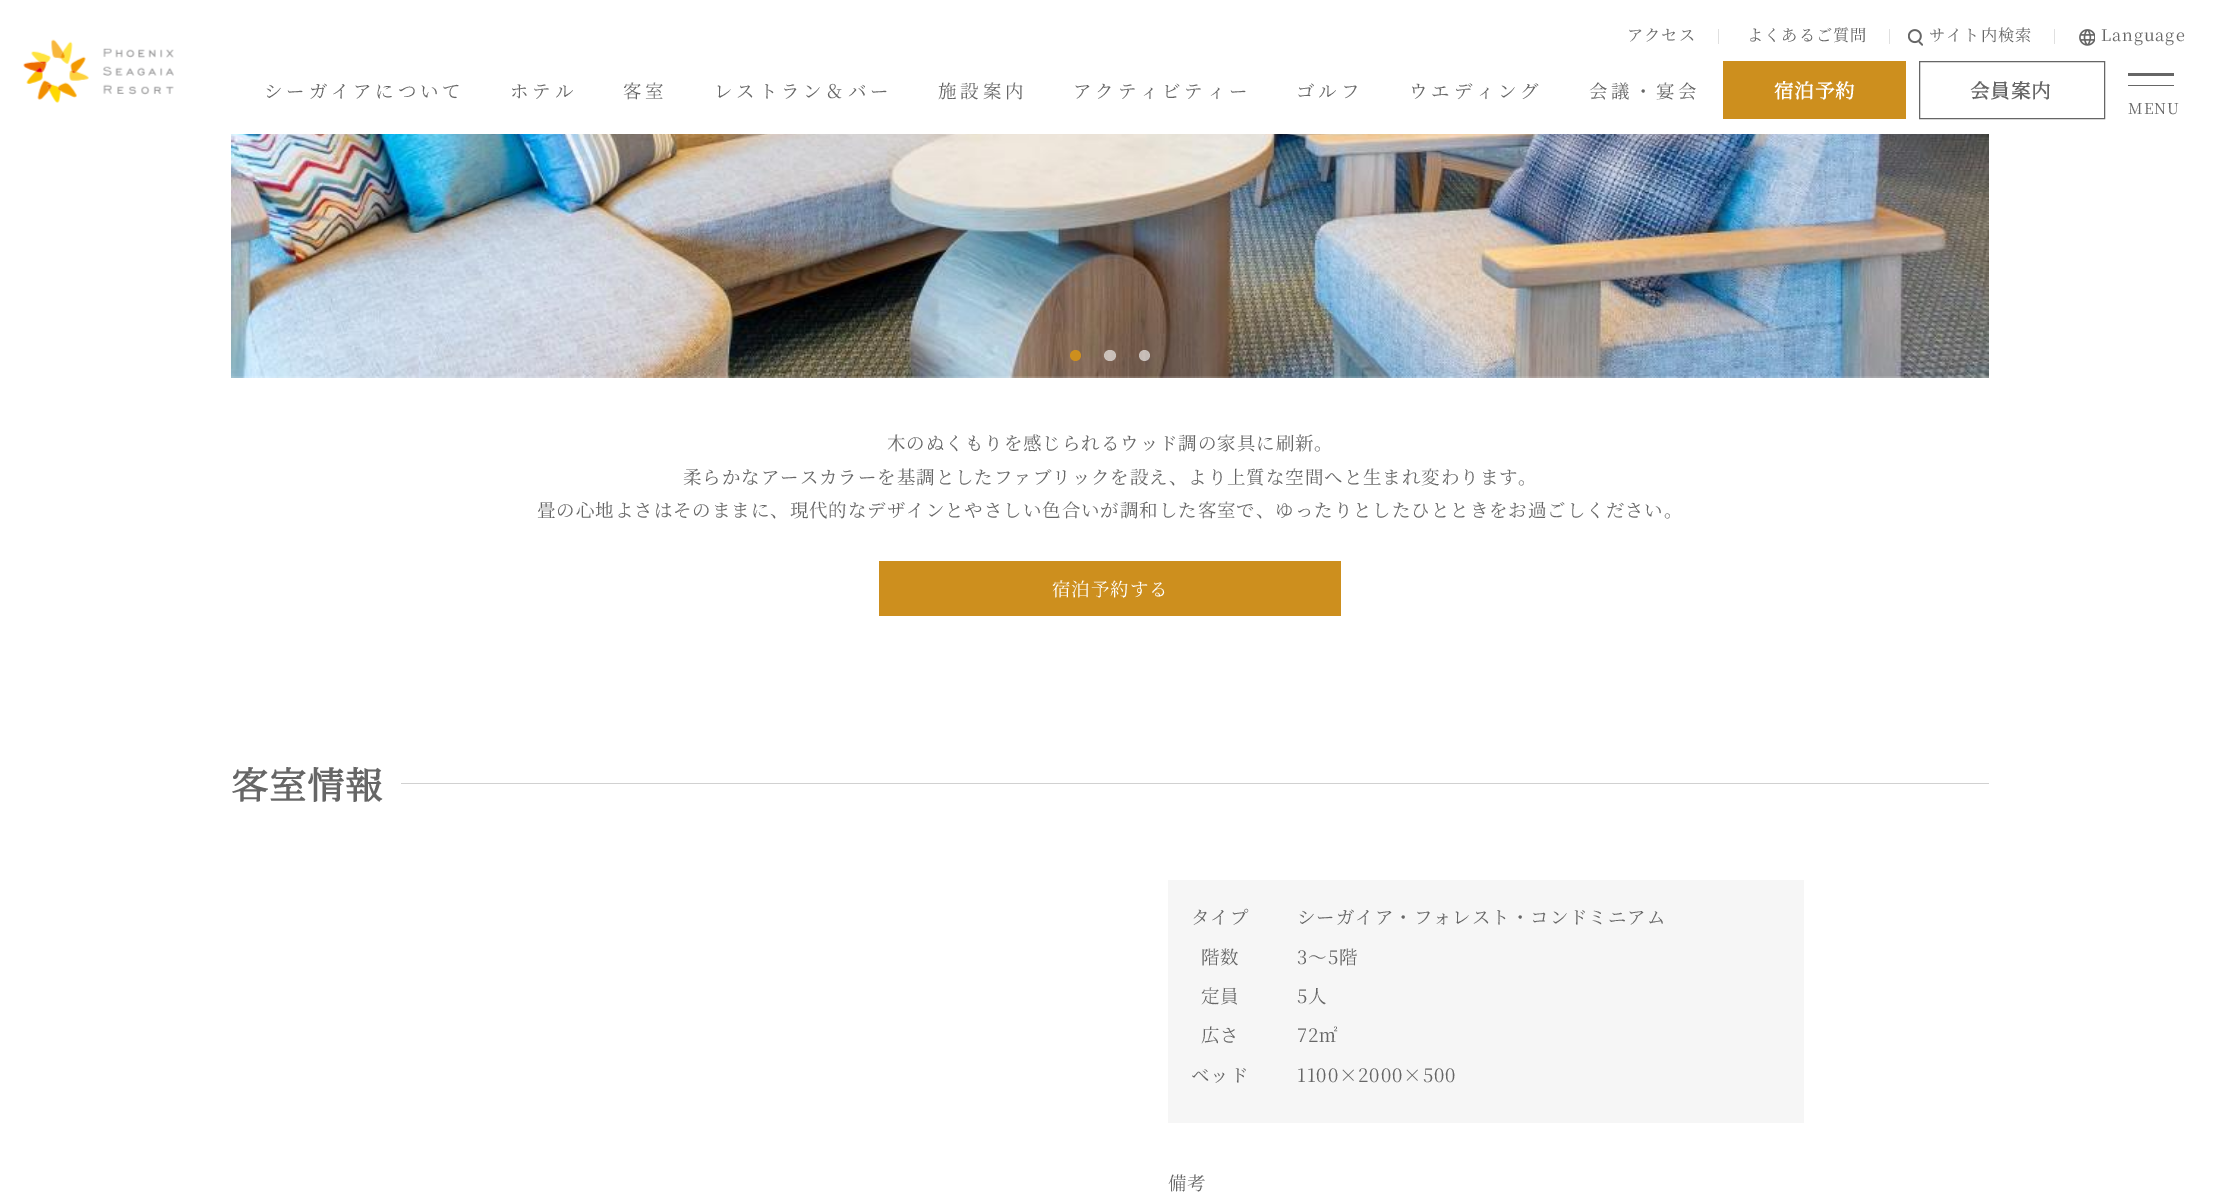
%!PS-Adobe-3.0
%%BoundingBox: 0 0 2220 1194
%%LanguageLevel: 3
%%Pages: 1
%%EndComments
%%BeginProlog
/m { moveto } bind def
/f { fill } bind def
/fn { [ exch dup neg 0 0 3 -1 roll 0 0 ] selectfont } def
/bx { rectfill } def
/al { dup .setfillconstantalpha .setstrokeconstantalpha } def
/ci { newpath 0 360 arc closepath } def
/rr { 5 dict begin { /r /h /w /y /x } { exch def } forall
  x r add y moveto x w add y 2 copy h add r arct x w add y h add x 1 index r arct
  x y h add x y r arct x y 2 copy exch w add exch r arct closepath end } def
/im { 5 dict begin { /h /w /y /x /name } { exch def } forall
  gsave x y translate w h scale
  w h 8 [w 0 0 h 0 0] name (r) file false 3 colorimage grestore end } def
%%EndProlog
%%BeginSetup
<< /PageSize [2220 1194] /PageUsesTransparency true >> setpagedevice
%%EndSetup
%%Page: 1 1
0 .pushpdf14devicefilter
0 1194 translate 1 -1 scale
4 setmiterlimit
1 setgray
0 0 2220 1194 bx
/NotoSerifJP-ExtraLight 16.25 fn
0.4 setgray
1627 41 m 0.93 0 (アクセス) ashow
0.878 setgray
1718 29 1 15 bx
0.4 setgray
1747 41 m 0.93 0 (よくあるご質問) ashow
0.878 setgray
1889 29 1 15 bx
(image0.raw) 1908 29 15 17 im
0.4 setgray
1929 41 m 0.93 0 (サイト内検索) ashow
0.878 setgray
2054 29 1 15 bx
(image1.raw) 2079 29 16 17 im
0.4 setgray
2101 41 m 0.93 0 (Language) ashow
(image2.raw) 23 39 151 64 im
/NotoSerifJP-ExtraLight 18.5 fn
264 98 m 3.75 0 (シーガイアについて) ashow
510 98 m 3.75 0 (ホテル) ashow
623 98 m 3.75 0 (客室) ashow
714 98 m 3.75 0 (レストラン＆バー) ashow
938 98 m 3.75 0 (施設案内) ashow
1073 98 m 3.75 0 (アクティビティー) ashow
1296 98 m 3.75 0 (ゴルフ) ashow
1409 98 m 3.75 0 (ウエディング) ashow
1589 98 m 3.75 0 (会議・宴会) ashow
0.804 0.561 0.118 setrgbcolor
1723 61 183 58 bx
/NotoSerifJP-Bold 19.5 fn
1 setgray
1774 98 m 0.93 0 (宿泊予約) ashow
0.4 setgray
1919.5 61.5 185 57 rectstroke
1970 98 m 0.93 0 (会員案内) ashow
2128 73 46 3 bx
2128 85 46 1 bx
/NotoSerifJP-ExtraLight 15 fn
2128 114 m 0.93 0 (MENU) ashow
(image3.raw) 231 134 1758 244 im
0.804 0.561 0.118 setrgbcolor
1075.5 355.5 5.5 ci f
0.6 al
1 setgray
1104 350 12 11 5.5 rr f
1144.5 355.5 5.5 ci f
/NotoSerifJP-ExtraLight 18.5 fn
1 al
0.4 setgray
887 450 m 0.93 0 (木のぬくもりを感じられるウッド調の家具に刷新。) ashow
683 484 m 0.93 0 (柔らかなアースカラーを基調としたファブリックを設え、より上質な空間へと生まれ変わります。) ashow
537 517 m 0.93 0 (畳の心地よさはそのままに、現代的なデザインとやさしい色合いが調和した客室で、ゆったりとしたひとときをお過ごしください。) ashow
0.804 0.561 0.118 setrgbcolor
879 561 462 55 bx
1 setgray
1052 596 m 0.93 0 (宿泊予約する) ashow
/NotoSerifJP-Bold 37 fn
0.4 setgray
231 799 m 0.93 0 (客室情報) ashow
0.82 setgray
401 783 1588 1 bx
0.965 setgray
1168 880 636 243 bx
/NotoSerifJP-ExtraLight 18.5 fn
0.4 setgray
1191 924 m 0.93 0 (タイプ) ashow
1297 924 m 0.93 0 (シーガイア・フォレスト・コンドミニアム) ashow
1201 964 m 0.93 0 (階数) ashow
1297 964 m 0.93 0 (3～5階) ashow
1201 1003 m 0.93 0 (定員) ashow
1297 1003 m 0.93 0 (5人) ashow
1201 1042 m 0.93 0 (広さ) ashow
1297 1042 m 0.93 0 (72㎡) ashow
1191 1082 m 0.93 0 (ベッド) ashow
1297 1082 m 0.93 0 (1100×2000×500) ashow
1168 1190 m 0.93 0 (備考) ashow
.poppdf14devicefilter showpage
%%EOF
